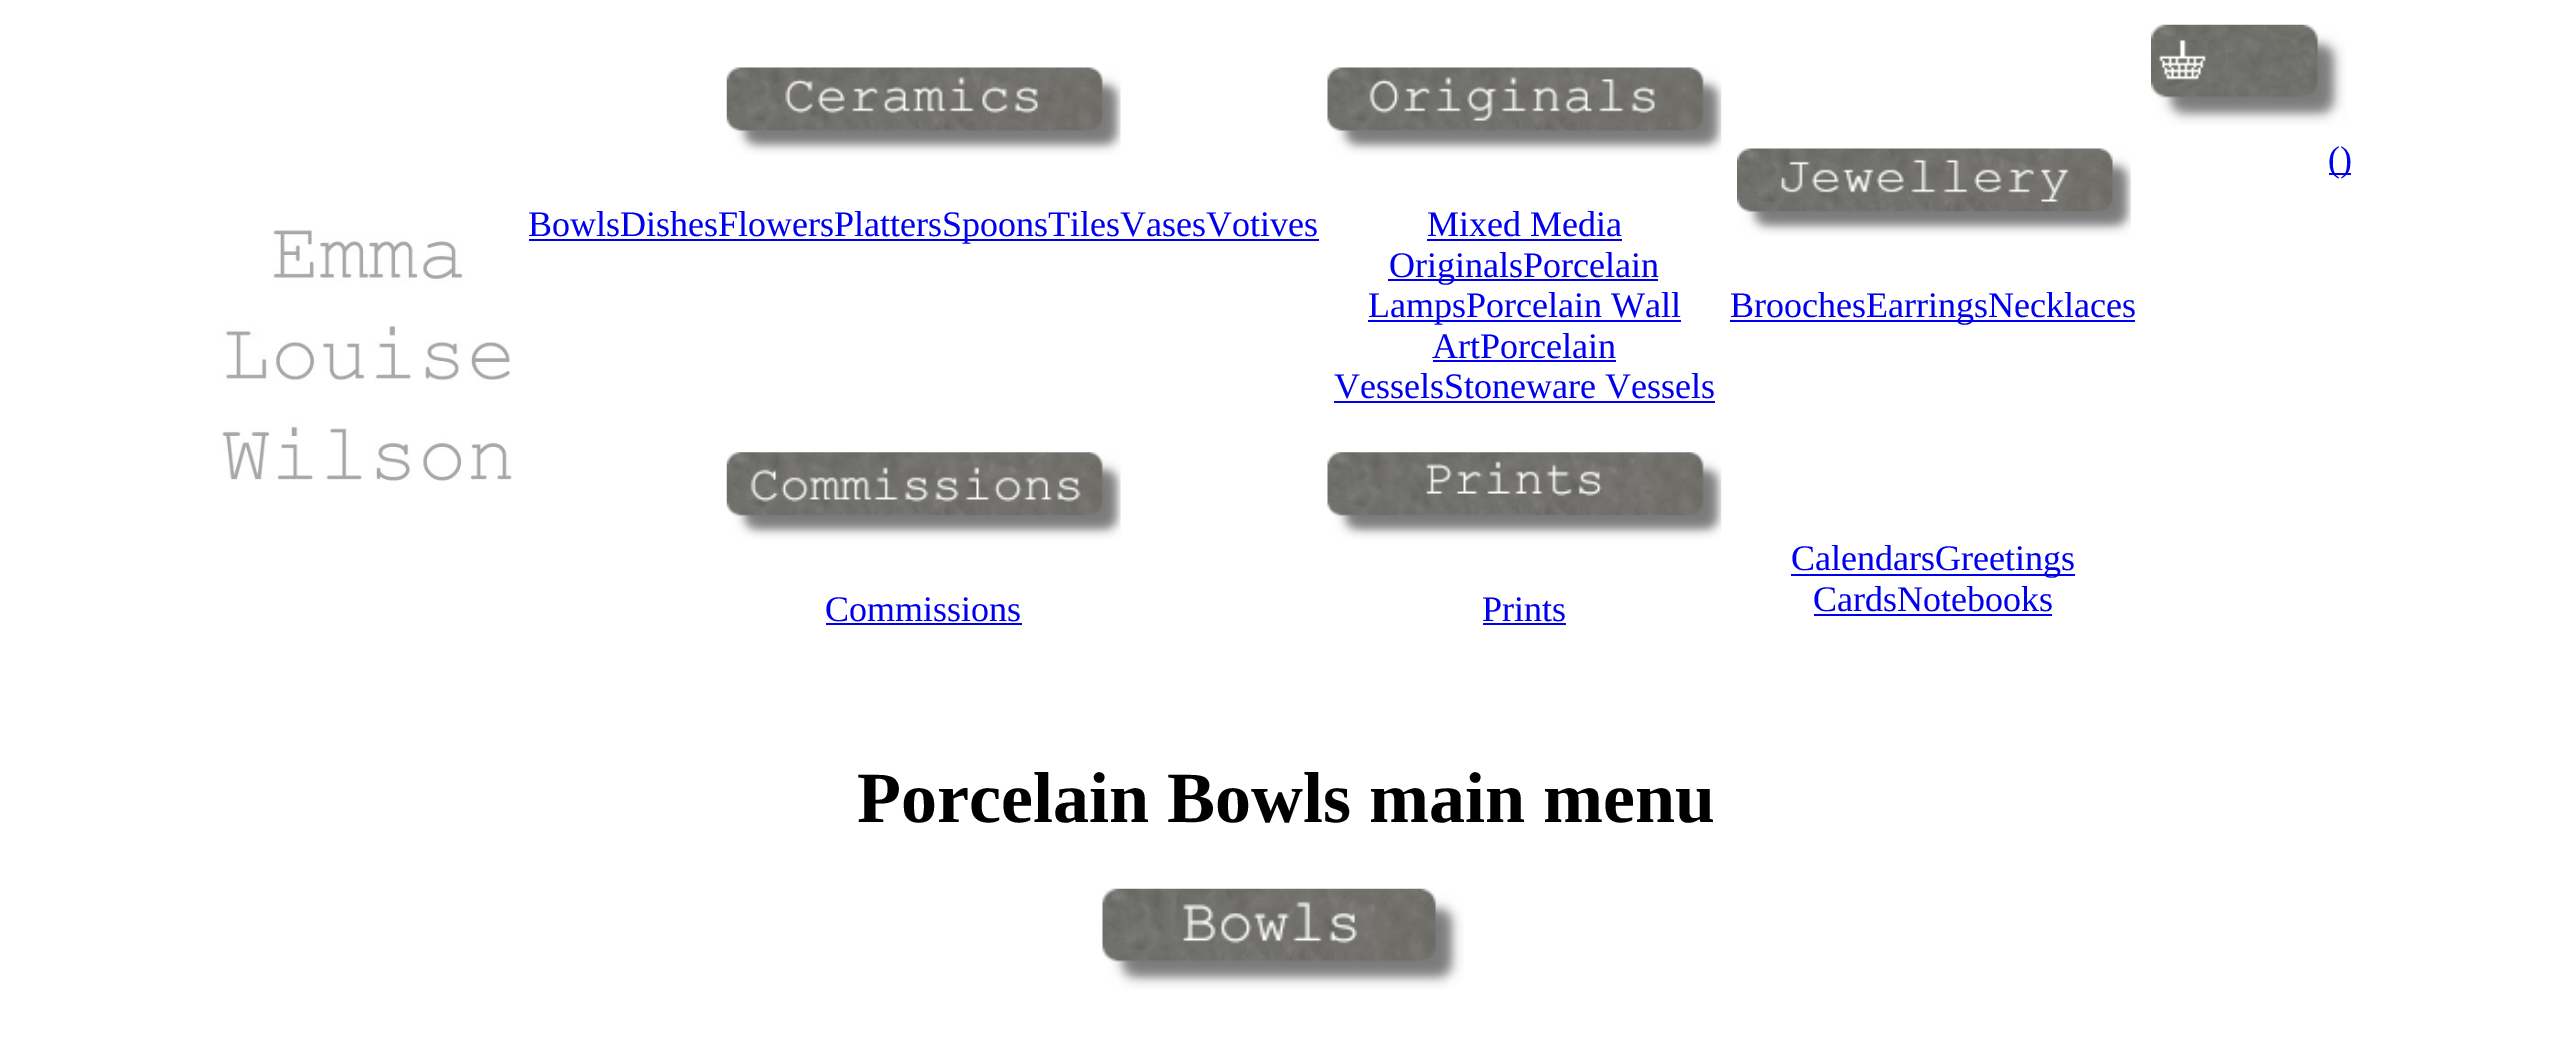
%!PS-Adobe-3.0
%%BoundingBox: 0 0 2571 1056
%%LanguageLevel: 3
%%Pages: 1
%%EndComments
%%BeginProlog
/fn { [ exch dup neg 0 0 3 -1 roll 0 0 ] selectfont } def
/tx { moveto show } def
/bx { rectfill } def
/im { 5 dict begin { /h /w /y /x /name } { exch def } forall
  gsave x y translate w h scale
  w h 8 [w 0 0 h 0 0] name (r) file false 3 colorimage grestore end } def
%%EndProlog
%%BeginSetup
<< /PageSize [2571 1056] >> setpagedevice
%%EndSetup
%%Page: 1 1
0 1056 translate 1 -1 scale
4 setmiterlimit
1 setgray
0 0 2571 1056 bx
(image0.raw) 2151 24 195 101 im
0 0 0.933 setrgbcolor
2329 173 22 2 bx
/LiberationSerif-Regular 36 fn
(\(\)) 2328 171 tx
(image1.raw) 222 230 290 251 im
(image2.raw) 726 67 395 88 im
529 239 790 2 bx
(BowlsDishesFlowersPlattersSpoonsTilesVasesVotives) 528 236 tx
(image3.raw) 1327 67 395 88 im
(Mixed Media) 1427 236 tx
1427 239 195 2 bx
1388 279 270 2 bx
(OriginalsPorcelain) 1389 277 tx
1368 320 313 2 bx
(LampsPorcelain Wall) 1368 317 tx
(ArtPorcelain) 1432 358 tx
1433 360 183 2 bx
(VesselsStoneware Vessels) 1334 398 tx
1334 401 381 2 bx
(image4.raw) 1737 148 394 88 im
1730 320 405 2 bx
(BroochesEarringsNecklaces) 1730 317 tx
(image5.raw) 726 452 395 88 im
(Commissions) 825 621 tx
826 623 196 2 bx
(image6.raw) 1327 452 395 88 im
(Prints) 1482 621 tx
1483 623 83 2 bx
1791 574 284 2 bx
(CalendarsGreetings) 1791 570 tx
(CardsNotebooks) 1813 611 tx
1814 614 238 2 bx
/LiberationSerif-Bold 72 fn
0 setgray
(Porcelain Bowls main menu) 857 822 tx
(image7.raw) 1102 888 362 101 im
showpage
%%EOF
